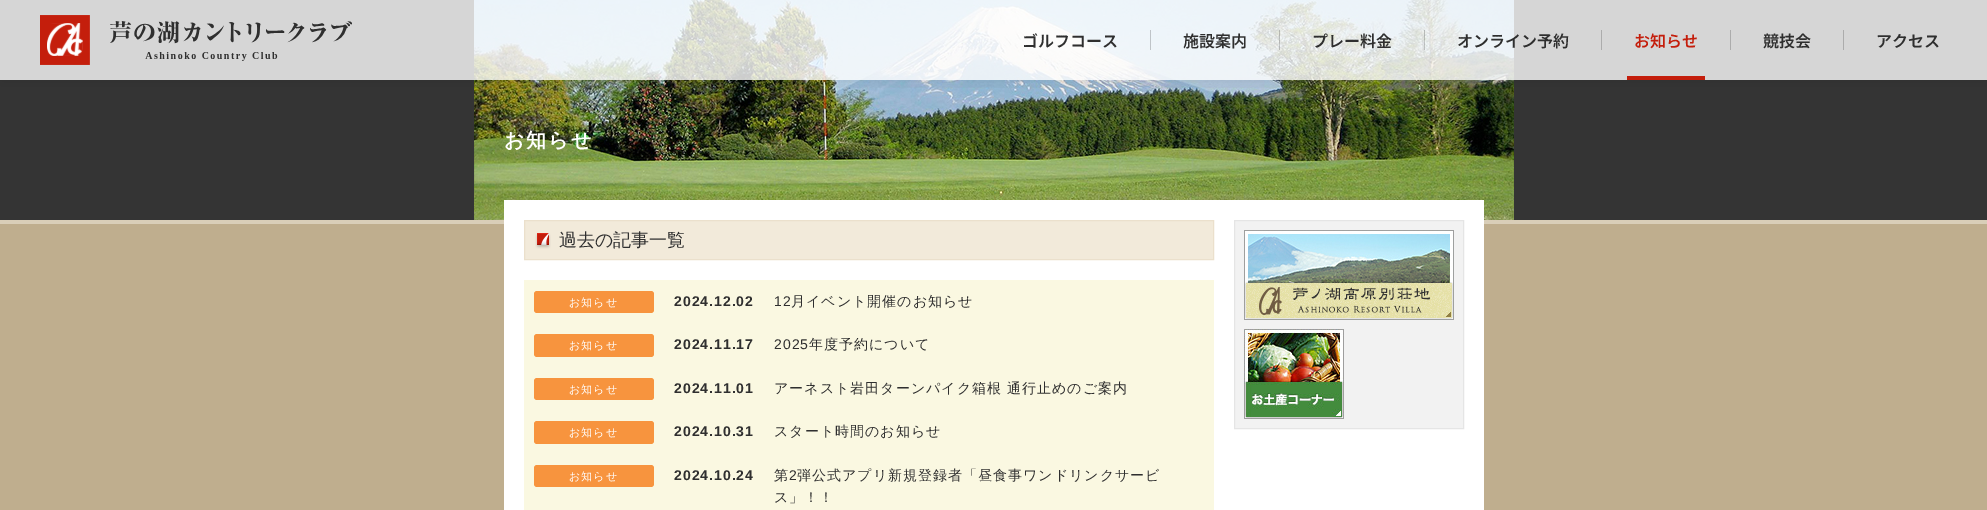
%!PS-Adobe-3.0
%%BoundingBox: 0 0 1987 510
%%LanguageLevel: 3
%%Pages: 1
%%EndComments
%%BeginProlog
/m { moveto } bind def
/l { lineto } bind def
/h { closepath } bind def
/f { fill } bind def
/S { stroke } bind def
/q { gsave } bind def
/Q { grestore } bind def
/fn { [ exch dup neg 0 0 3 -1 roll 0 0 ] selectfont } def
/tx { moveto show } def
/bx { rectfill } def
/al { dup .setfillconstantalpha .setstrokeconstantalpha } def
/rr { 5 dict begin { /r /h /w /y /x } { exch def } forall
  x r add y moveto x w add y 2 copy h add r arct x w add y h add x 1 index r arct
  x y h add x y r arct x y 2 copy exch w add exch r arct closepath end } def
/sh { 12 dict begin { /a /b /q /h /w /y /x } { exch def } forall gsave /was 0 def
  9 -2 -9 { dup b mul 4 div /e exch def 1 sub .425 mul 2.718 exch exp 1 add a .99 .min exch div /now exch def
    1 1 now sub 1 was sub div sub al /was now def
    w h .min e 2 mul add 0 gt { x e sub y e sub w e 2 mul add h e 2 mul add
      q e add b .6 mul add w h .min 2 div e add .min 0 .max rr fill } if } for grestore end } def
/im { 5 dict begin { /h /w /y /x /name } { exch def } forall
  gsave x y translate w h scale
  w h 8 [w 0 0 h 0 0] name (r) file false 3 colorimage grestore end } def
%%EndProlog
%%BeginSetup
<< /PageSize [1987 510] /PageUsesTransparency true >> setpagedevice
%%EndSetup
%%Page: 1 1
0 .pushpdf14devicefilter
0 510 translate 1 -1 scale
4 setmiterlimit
0.204 setgray
0 0 1987 510 bx
(image0.raw) 474 0 1040 220 im
q
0 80 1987 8 rectclip
0 setgray
0 0 1987 80 0 10 0.1 sh
Q
0.8 al
1 setgray
0 0 1987 80 bx
1 al
(image1.raw) 40 15 312 50 im
/NotoSansJP-SemiBold 16 fn
0.184 setgray
(ゴルフコース) 1022 47 tx
0.749 0.769 0.784 setrgbcolor
1150 30 1 20 bx
0.184 setgray
(施設案内) 1183 47 tx
0.2 al
0 setgray
1279 30 1 20 bx
1 al
0.184 setgray
(プレー料金) 1312 47 tx
0.2 al
0 setgray
1424 30 1 20 bx
1 al
0.184 setgray
(オンライン予約) 1457 47 tx
0.675 setgray
1601 30 1 20 bx
0.769 0.118 0.047 setrgbcolor
(お知らせ) 1634 47 tx
1627 76 78 4 bx
0.675 setgray
1730 30 1 20 bx
0.184 setgray
(競技会) 1763 47 tx
0.675 setgray
1843 30 1 20 bx
0.184 setgray
(アクセス) 1876 47 tx
0.749 0.682 0.557 setrgbcolor
0 224 1987 286 bx
0.851 0.808 0.722 setrgbcolor
0 220 1987 4 bx
1 setgray
504 200 980 310 bx
/WenQuanYiZenHei-Bold 20 fn
504 147 m 2 0 (お知らせ) ashow
0.949 0.918 0.855 setrgbcolor
525 221 688 38 bx
(image2.raw) 535 233 16 16 im
0.922 0.878 0.8 setrgbcolor
524.5 220.5 689 39 rectstroke
/WenQuanYiZenHei-Medium 18 fn
0.184 setgray
(過去の記事一覧) 559 246 tx
0.98 0.973 0.882 setrgbcolor
524 280 690 43 bx
0.969 0.58 0.243 setrgbcolor
534 291 120 22 3 rr f
/WenQuanYiZenHei-Medium 11 fn
1 setgray
569 306 m 1 0 (お知らせ) ashow
/LiberationSans-Bold 14 fn
0.184 setgray
674 306 m 1 0 (2024.12.02) ashow
/LiberationSans-Regular 14 fn
774 306 m 1 0 (12) ashow
/WenQuanYiZenHei-Medium 14 fn
791 306 m 1 0 (月イベント開催のお知らせ) ashow
0.98 0.973 0.882 setrgbcolor
524 323 690 44 bx
0.969 0.58 0.243 setrgbcolor
534 334 120 23 3 rr f
/WenQuanYiZenHei-Medium 11 fn
1 setgray
569 349 m 1 0 (お知らせ) ashow
/LiberationSans-Bold 14 fn
0.184 setgray
674 349 m 1 0 (2024.11.17) ashow
/LiberationSans-Regular 14 fn
774 349 m 1 0 (2025) ashow
/WenQuanYiZenHei-Medium 14 fn
809 349 m 1 0 (年度予約について) ashow
0.98 0.973 0.882 setrgbcolor
524 367 690 43 bx
0.969 0.58 0.243 setrgbcolor
534 378 120 22 3 rr f
/WenQuanYiZenHei-Medium 11 fn
1 setgray
569 393 m 1 0 (お知らせ) ashow
/LiberationSans-Bold 14 fn
0.184 setgray
674 393 m 1 0 (2024.11.01) ashow
/WenQuanYiZenHei-Medium 14 fn
774 393 m 1 0 (アーネスト岩田ターンパイク箱根 通行止めのご案内) ashow
0.98 0.973 0.882 setrgbcolor
524 410 690 44 bx
0.969 0.58 0.243 setrgbcolor
534 421 120 23 3 rr f
/WenQuanYiZenHei-Medium 11 fn
1 setgray
569 436 m 1 0 (お知らせ) ashow
/LiberationSans-Bold 14 fn
0.184 setgray
674 436 m 1 0 (2024.10.31) ashow
/WenQuanYiZenHei-Medium 14 fn
774 436 m 1 0 (スタート時間のお知らせ) ashow
0.98 0.973 0.882 setrgbcolor
524 454 690 56 bx
0.969 0.58 0.243 setrgbcolor
534 465 120 22 3 rr f
/WenQuanYiZenHei-Medium 11 fn
1 setgray
569 480 m 1 0 (お知らせ) ashow
/LiberationSans-Bold 14 fn
0.184 setgray
674 480 m 1 0 (2024.10.24) ashow
/WenQuanYiZenHei-Medium 14 fn
774 480 m 1 0 (第) ashow
/LiberationSans-Regular 14 fn
789 480 m 1 0 (2) ashow
/WenQuanYiZenHei-Medium 14 fn
797 480 m 1 0 (弾公式アプリ新規登録者「昼食事ワンドリンクサービ) ashow
774 502 m 1 0 (ス」！！) ashow
0.949 setgray
1234.5 220.5 m 1463.5 220.5 l 1463.5 428.5 l 1234.5 428.5 l h q f Q
0.898 setgray
S
(image3.raw) 1244 230 210 90 im
(image4.raw) 1244 329 100 90 im
.poppdf14devicefilter showpage
%%EOF
